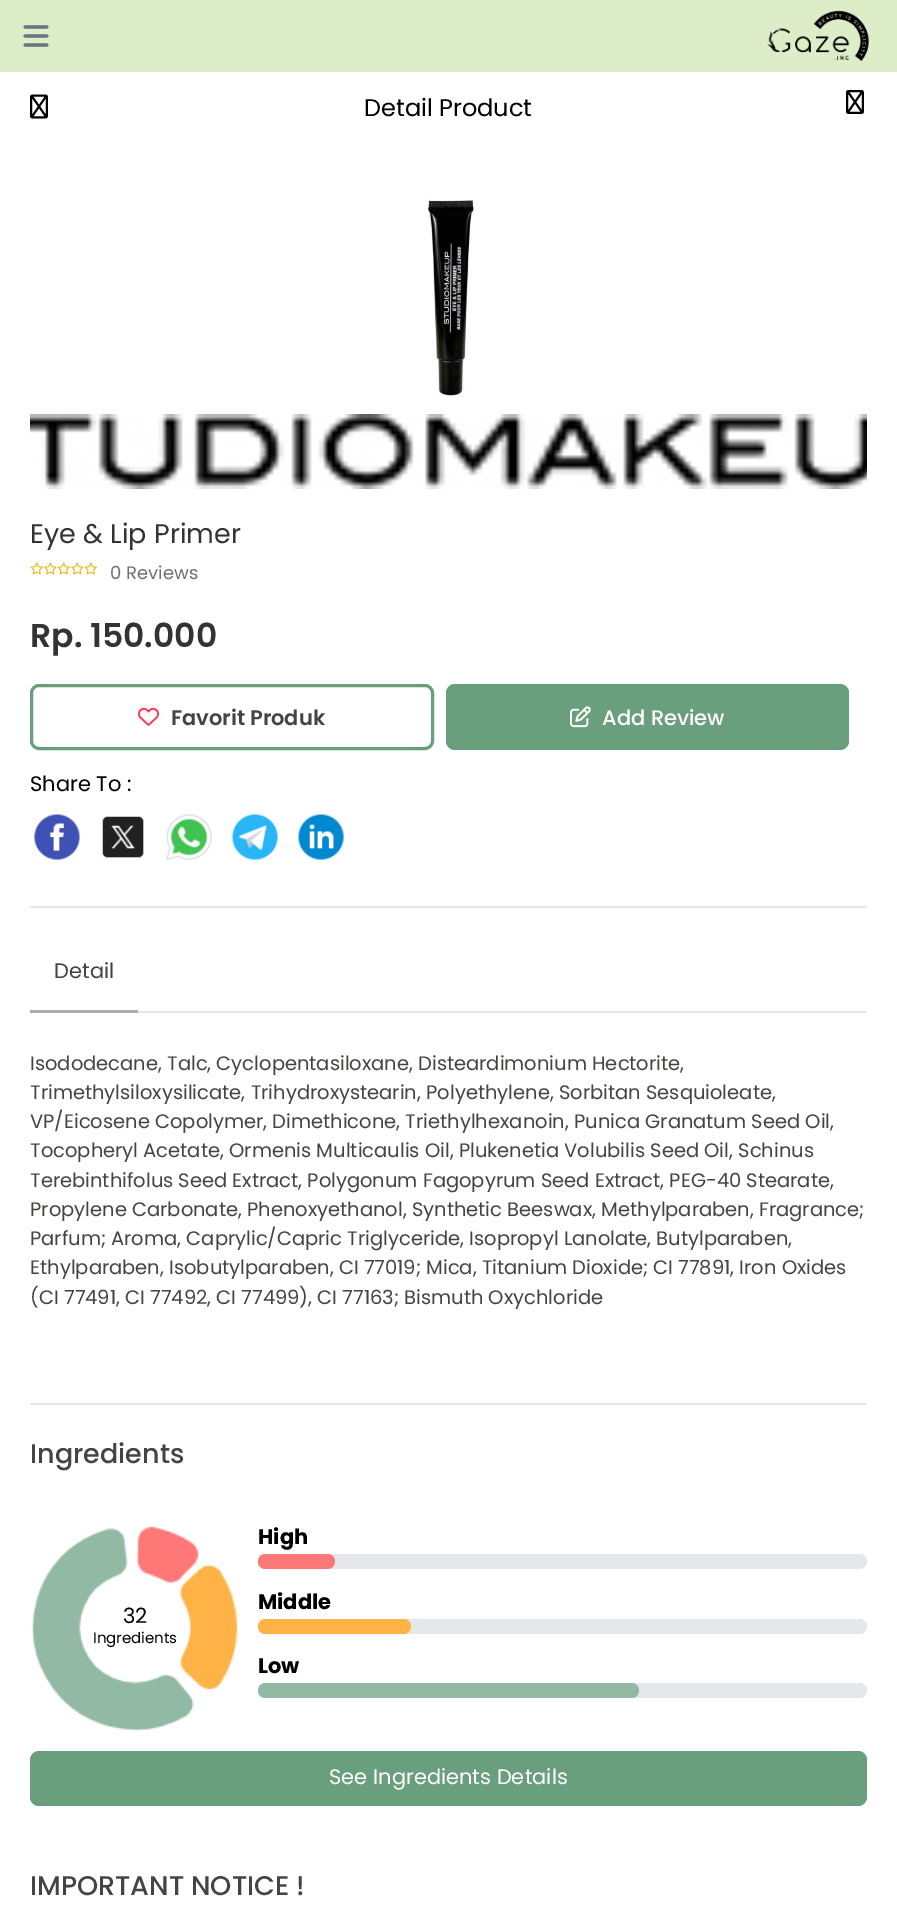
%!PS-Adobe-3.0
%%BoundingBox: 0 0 897 1921
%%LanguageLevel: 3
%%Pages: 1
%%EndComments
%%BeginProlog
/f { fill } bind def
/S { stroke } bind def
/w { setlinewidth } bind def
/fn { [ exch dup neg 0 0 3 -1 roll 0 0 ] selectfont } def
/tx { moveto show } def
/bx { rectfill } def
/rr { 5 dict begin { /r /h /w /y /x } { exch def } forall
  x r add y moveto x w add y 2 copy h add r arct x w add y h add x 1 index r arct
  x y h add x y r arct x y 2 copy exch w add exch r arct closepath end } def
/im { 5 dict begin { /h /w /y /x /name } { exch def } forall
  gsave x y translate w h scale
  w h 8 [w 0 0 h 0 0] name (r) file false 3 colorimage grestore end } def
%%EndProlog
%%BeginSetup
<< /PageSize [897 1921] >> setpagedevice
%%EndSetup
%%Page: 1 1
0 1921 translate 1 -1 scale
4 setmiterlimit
1 setgray
0 0 897 1921 bx
0.863 0.929 0.784 setrgbcolor
0 0 897 72 bx
(image0.raw) 23 25 26 22 im
(image1.raw) 767 10 102 51 im
(image2.raw) 30 94 18 25 im
/Poppins-Regular 24 fn
0 setgray
(Detail Product) 364 116 tx
(image3.raw) 846 90 18 24 im
(image4.raw) 427 199 48 198 im
(image5.raw) 30 414 837 75 im
/Poppins-Regular 27 fn
0.2 setgray
(Eye & Lip Primer) 30 543 tx
(image6.raw) 30 562 13 13 im
(image7.raw) 44 562 13 13 im
(image6.raw) 57 562 13 13 im
(image7.raw) 71 562 13 13 im
(image6.raw) 84 562 13 13 im
/Poppins-Regular 18 fn
0.435 setgray
(0 Reviews) 110 579 tx
/Poppins-SemiBold 33 fn
0.2 setgray
(Rp. 150.000) 30 647 tx
0.412 0.624 0.49 setrgbcolor
3 w
31.5 685.5 401 63 7.5 rr S
(image8.raw) 138 707 21 19 im
/Poppins-SemiBold 21 fn
0.267 0.271 0.259 setrgbcolor
(Favorit Produk) 171 725 tx
0.412 0.624 0.49 setrgbcolor
446 684 403 66 9 rr f
(image9.raw) 570 706 21 22 im
/Poppins-Medium 21 fn
1 setgray
(Add Review) 602 725 tx
/Poppins-Regular 21 fn
0 setgray
(Share To :) 30 791 tx
(image10.raw) 34 814 46 46 im
(image11.raw) 102 816 42 42 im
(image12.raw) 166 814 46 47 im
(image13.raw) 232 814 46 46 im
(image14.raw) 298 814 46 46 im
0.898 0.906 0.922 setrgbcolor
30 906 837 2 bx
138 1011 729 2 bx
0.678 setgray
30 1010 108 3 bx
0.267 0.271 0.259 setrgbcolor
(Detail) 54 978 tx
/Poppins-Regular 19.5 fn
(Isododecane, Talc, Cyclopentasiloxane, Disteardimonium Hectorite,) 30 1070 tx
(Trimethylsiloxysilicate, Trihydroxystearin, Polyethylene, Sorbitan Sesquioleate,) 30 1099 tx
(VP/Eicosene Copolymer, Dimethicone, Triethylhexanoin, Punica Granatum Seed Oil,) 30 1128 tx
(Tocopheryl Acetate, Ormenis Multicaulis Oil, Plukenetia Volubilis Seed Oil, Schinus) 30 1157 tx
(Terebinthifolus Seed Extract, Polygonum Fagopyrum Seed Extract, PEG-40 Stearate,) 30 1187 tx
(Propylene Carbonate, Phenoxyethanol, Synthetic Beeswax, Methylparaben, Fragrance;) 30 1216 tx
(Parfum; Aroma, Caprylic/Capric Triglyceride, Isopropyl Lanolate, Butylparaben,) 30 1245 tx
(Ethylparaben, Isobutylparaben, CI 77019; Mica, Titanium Dioxide; CI 77891, Iron Oxides) 30 1274 tx
(\(CI 77491, CI 77492, CI 77499\), CI 77163; Bismuth Oxychloride) 30 1304 tx
0.898 0.906 0.922 setrgbcolor
30 1403 837 2 bx
/Poppins-Medium 27 fn
0.267 0.271 0.259 setrgbcolor
(Ingredients) 30 1463 tx
(image15.raw) 31 1526 207 206 im
/Poppins-Regular 21 fn
0 setgray
(32) 123 1623 tx
/Poppins-Regular 15 fn
(Ingredients) 93 1643 tx
/Poppins-Bold 21 fn
(High) 258 1544 tx
0.898 0.906 0.922 setrgbcolor
258 1554 609 15 7.5 rr f
1 0.471 0.471 setrgbcolor
258 1554 77 15 7.5 rr f
0 setgray
(Middle) 258 1609 tx
0.898 0.906 0.922 setrgbcolor
258 1619 609 15 7.5 rr f
1 0.698 0.275 setrgbcolor
258 1619 153 15 7.5 rr f
0 setgray
(Low) 258 1673 tx
0.898 0.906 0.922 setrgbcolor
258 1683 609 15 7.5 rr f
0.573 0.725 0.643 setrgbcolor
258 1683 381 15 7.5 rr f
0.412 0.624 0.49 setrgbcolor
30 1751 837 55 9 rr f
/Poppins-Regular 21 fn
1 setgray
(See Ingredients Details) 329 1784 tx
/Poppins-Medium 27 fn
0.267 0.271 0.259 setrgbcolor
(IMPORTANT NOTICE !) 30 1895 tx
showpage
%%EOF
